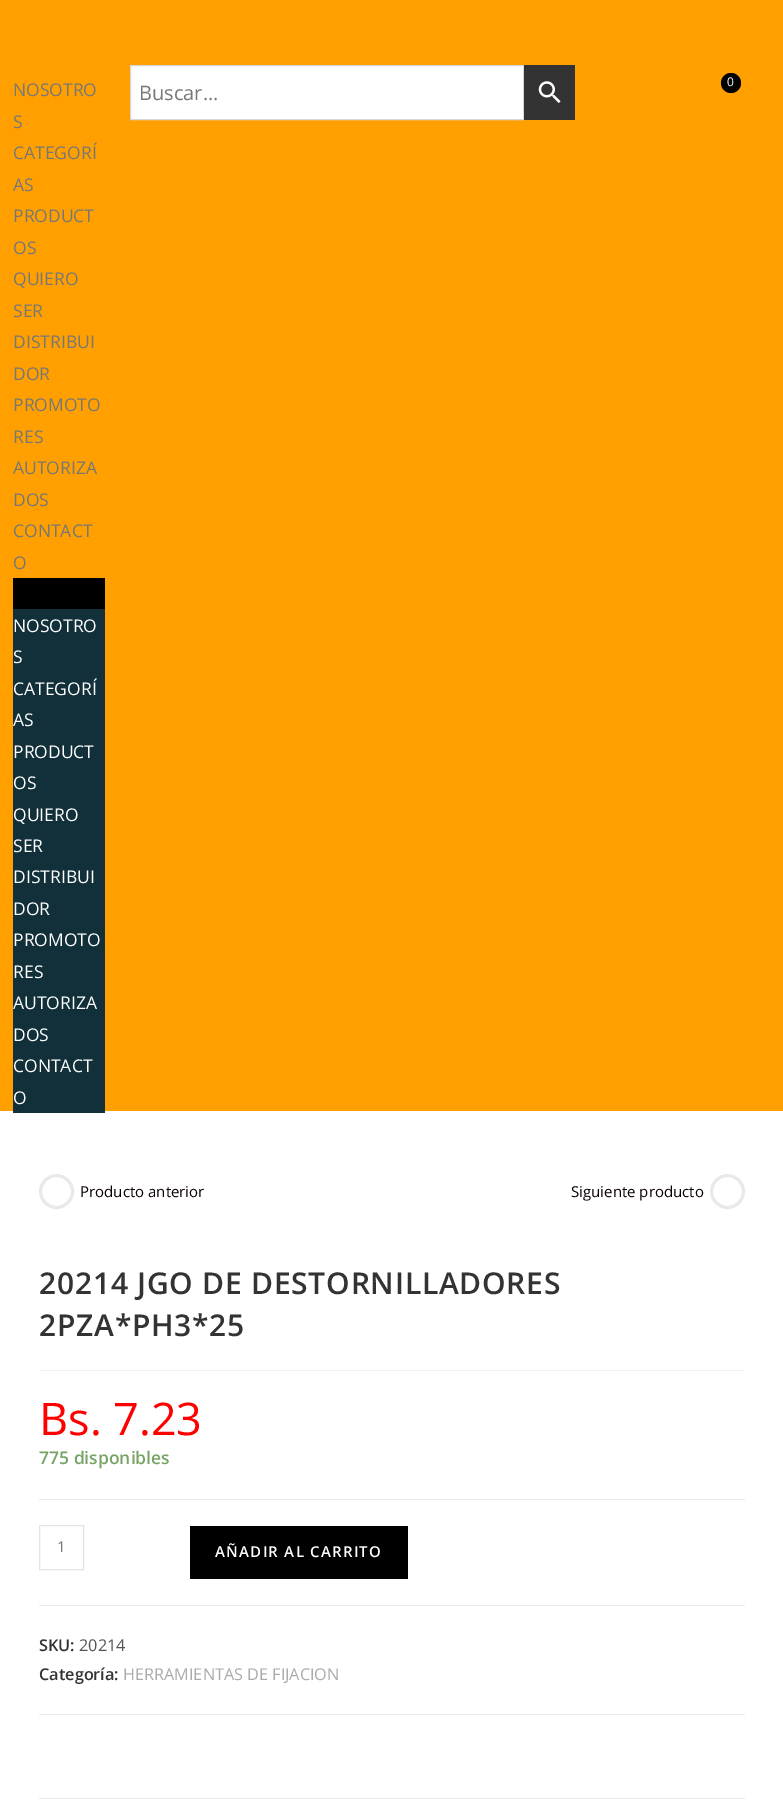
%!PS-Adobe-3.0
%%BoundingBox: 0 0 783 1802
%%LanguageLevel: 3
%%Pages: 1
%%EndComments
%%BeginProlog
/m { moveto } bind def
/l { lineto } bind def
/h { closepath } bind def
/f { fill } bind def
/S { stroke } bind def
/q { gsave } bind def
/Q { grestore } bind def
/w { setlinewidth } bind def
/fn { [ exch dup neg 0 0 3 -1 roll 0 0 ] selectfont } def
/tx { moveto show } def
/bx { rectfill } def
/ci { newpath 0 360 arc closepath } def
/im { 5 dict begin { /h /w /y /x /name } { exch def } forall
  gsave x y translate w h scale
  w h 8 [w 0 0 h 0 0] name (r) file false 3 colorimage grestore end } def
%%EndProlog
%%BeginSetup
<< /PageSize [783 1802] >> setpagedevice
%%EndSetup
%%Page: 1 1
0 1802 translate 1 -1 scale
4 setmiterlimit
1 setgray
0 0 783 1802 bx
1 0.627 0 setrgbcolor
0 0 783 1111 bx
0 setgray
731 83 10 ci f
/OpenSans-Regular 12 fn
1 setgray
(0) 727 86 tx
/OpenSans-Regular 17.5 fn
0.467 setgray
(NOSOTRO) 13 96 tx
(S) 13 128 tx
(CATEGORÍ) 13 159 tx
(AS) 13 191 tx
(PRODUCT) 13 222 tx
(OS) 13 254 tx
(QUIERO) 13 285 tx
(SER) 13 317 tx
(DISTRIBUI) 13 348 tx
(DOR) 13 380 tx
(PROMOTO) 13 411 tx
(RES) 13 443 tx
(AUTORIZA) 13 474 tx
(DOS) 13 506 tx
(CONTACT) 13 537 tx
(O) 13 569 tx
0 setgray
13 578 92 31 bx
0.067 0.188 0.227 setrgbcolor
13 609 92 504 bx
1 setgray
(NOSOTRO) 13 632 tx
(S) 13 663 tx
(CATEGORÍ) 13 695 tx
(AS) 13 726 tx
(PRODUCT) 13 758 tx
(OS) 13 789 tx
(QUIERO) 13 821 tx
(SER) 13 852 tx
(DISTRIBUI) 13 883 tx
(DOR) 13 915 tx
(PROMOTO) 13 946 tx
(RES) 13 978 tx
(AUTORIZA) 13 1009 tx
(DOS) 13 1041 tx
(CONTACT) 13 1072 tx
(O) 13 1104 tx
130.5 65.5 m 523.5 65.5 l 523.5 119.5 l 130.5 119.5 l h q f Q
0.847 setgray
S
/OpenSans-Regular 20 fn
0.467 setgray
(Buscar...) 139 100 tx
0.2 setgray
524 65 51 55 bx
(image0.raw) 538 81 23 22 im
0.914 setgray
3 w
56.5 1191.5 16 ci S
/OpenSans-Regular 15 fn
0.039 0 0 setrgbcolor
(Producto anterior) 80 1197 tx
(Siguiente producto) 571 1197 tx
0.914 setgray
727.5 1191.5 16 ci S
0.945 setgray
39 1370 706 1 bx
/OpenSans-SemiBold 30 fn
0.2 setgray
39 1294 m 0.75 0 (20214 JGO DE DESTORNILLADORES) ashow
39 1336 m 0.75 0 (2PZA*PH3*25) ashow
/OpenSans-Regular 45 fn
1 0 0 setrgbcolor
(Bs. 7.23) 39 1435 tx
/OpenSans-SemiBold 17.5 fn
0.467 0.643 0.392 setrgbcolor
(775 disponibles) 39 1464 tx
0.918 setgray
39 1499 706 1 bx
39 1605 706 1 bx
0.894 setgray
1 w
39.5 1525.5 44 44 rectstroke
/OpenSans-Regular 15 fn
0.467 setgray
(1) 57 1552 tx
0 setgray
190 1526 218 53 bx
/OpenSans-SemiBold 15 fn
1 setgray
215 1557 m 1.25 0 (AÑADIR AL CARRITO) ashow
0.918 setgray
39 1714 706 1 bx
/OpenSans-SemiBold 16.25 fn
0.2 setgray
(SKU:) 39 1651 tx
/OpenSans-Regular 16.25 fn
0.333 setgray
(20214) 79 1651 tx
/OpenSans-SemiBold 16.25 fn
0.2 setgray
(Categoría:) 39 1680 tx
/OpenSans-Regular 16.25 fn
0.671 setgray
(HERRAMIENTAS DE FIJACION) 123 1680 tx
0.918 setgray
39 1798 706 1 bx
showpage
%%EOF
